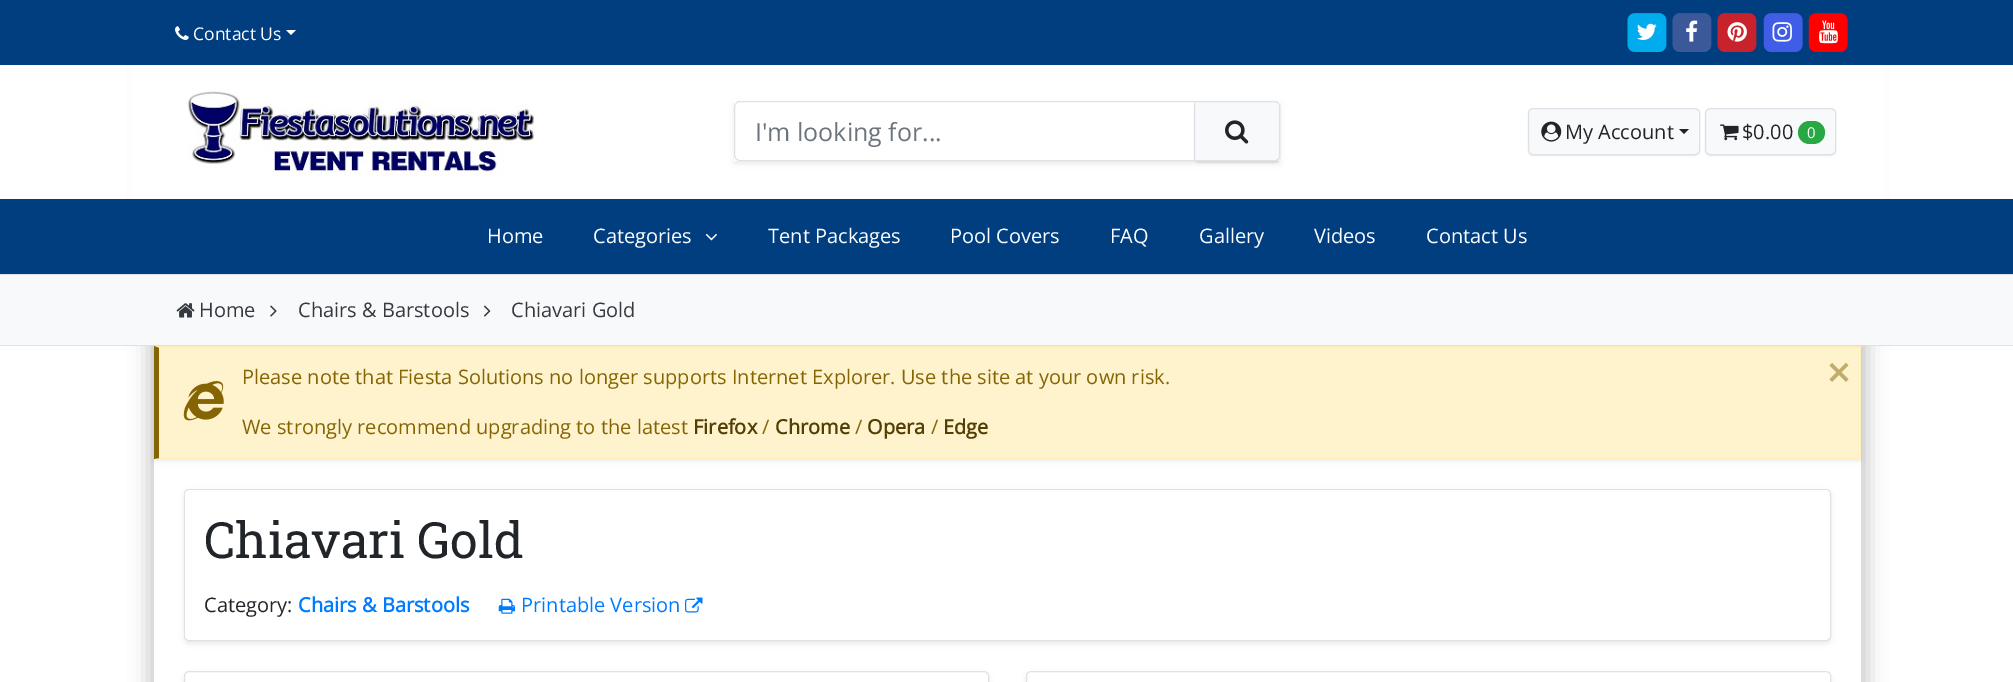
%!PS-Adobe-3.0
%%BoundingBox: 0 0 2013 682
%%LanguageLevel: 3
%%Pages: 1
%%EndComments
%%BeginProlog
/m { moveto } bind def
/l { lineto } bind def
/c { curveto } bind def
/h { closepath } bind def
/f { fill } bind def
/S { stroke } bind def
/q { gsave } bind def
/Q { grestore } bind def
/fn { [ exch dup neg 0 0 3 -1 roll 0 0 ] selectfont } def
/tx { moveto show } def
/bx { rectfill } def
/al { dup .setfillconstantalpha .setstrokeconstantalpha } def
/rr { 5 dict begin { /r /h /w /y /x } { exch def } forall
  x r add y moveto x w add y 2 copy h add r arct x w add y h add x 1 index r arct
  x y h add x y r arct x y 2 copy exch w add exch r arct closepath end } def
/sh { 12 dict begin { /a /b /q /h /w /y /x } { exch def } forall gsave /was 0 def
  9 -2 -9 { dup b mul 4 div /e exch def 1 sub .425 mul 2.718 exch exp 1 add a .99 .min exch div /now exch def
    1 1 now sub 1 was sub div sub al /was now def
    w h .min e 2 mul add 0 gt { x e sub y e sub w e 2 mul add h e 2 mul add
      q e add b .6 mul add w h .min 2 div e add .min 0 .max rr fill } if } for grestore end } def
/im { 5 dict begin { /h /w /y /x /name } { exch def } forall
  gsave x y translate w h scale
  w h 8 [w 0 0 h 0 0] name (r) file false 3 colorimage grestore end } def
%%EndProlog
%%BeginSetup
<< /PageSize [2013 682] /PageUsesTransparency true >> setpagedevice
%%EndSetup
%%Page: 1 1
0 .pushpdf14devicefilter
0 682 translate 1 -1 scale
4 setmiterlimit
1 setgray
0 0 2013 682 bx
q
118 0 m 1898 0 l 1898 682 l 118 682 l h 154 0 m 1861 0 l 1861 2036 l 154 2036 l h eoclip newpath
0 setgray
148 -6 1720 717 0 9.5 0.2 sh
Q
0 0.243 0.502 setrgbcolor
0 0 2013 65 bx
(image0.raw) 175 26 14 14 im
/OpenSans-Regular 17.5 fn
1 setgray
(Contact Us) 193 40 tx
286 30 m 296 30 l 291 35 l h f
(image1.raw) 1627 13 40 39 im
(image2.raw) 1637 23 20 17 im
(image3.raw) 1672 13 40 39 im
(image4.raw) 1686 20 12 22 im
(image5.raw) 1717 13 40 39 im
(image6.raw) 1727 22 20 20 im
(image7.raw) 1763 13 40 39 im
(image8.raw) 1772 22 20 20 im
(image9.raw) 1808 13 40 39 im
(image10.raw) 1819 20 19 24 im
132 65 1752 134 bx
(image11.raw) 188 91 347 85 im
q
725 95 m 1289 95 l 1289 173 l 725 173 l h 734 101 m 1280 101 l 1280 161 l 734 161 l h eoclip newpath
0 setgray
734 104 546 60 0 2.5 0.07 sh
Q
0.871 0.886 0.902 setrgbcolor
740 101.5 m 1194.5 101.5 l 1194.5 160.5 l 740 160.5 l 737 160.5 734.5 158 734.5 155 c 734.5 107 l 734.5 104 737 101.5 740 101.5 c h S
/OpenSans-Regular 25 fn
0.424 0.459 0.49 setrgbcolor
(I'm looking for...) 755 141 tx
0 setgray
1194 103 86 60 5 0.5 0.07 sh
0.973 0.976 0.98 setrgbcolor
1194.5 101.5 m 1275 101.5 l 1277.5 101.5 1279.5 103.5 1279.5 106 c 1279.5 156 l 1279.5 158.5 1277.5 160.5 1275 160.5 c 1194.5 160.5 l h q f Q
0.871 0.886 0.902 setrgbcolor
S
(image12.raw) 1225 120 24 24 im
0 setgray
1528 109 172 47 5 0.5 0.07 sh
0.973 0.976 0.98 setrgbcolor
1528.5 108.5 171 46 4.5 rr q f Q
0.871 0.886 0.902 setrgbcolor
S
(image13.raw) 1541 121 21 21 im
/OpenSans-Regular 20 fn
0.129 0.145 0.161 setrgbcolor
(My Account) 1565 139 tx
1679 129 m 1689 129 l 1684 134 l h f
0 setgray
1705 109 131 47 5 0.5 0.07 sh
0.973 0.976 0.98 setrgbcolor
1705.5 108.5 130 46 4.5 rr q f Q
0.871 0.886 0.902 setrgbcolor
S
(image14.raw) 1720 124 19 17 im
0.129 0.145 0.161 setrgbcolor
($0.00) 1742 139 tx
0.157 0.655 0.271 setrgbcolor
1798 121 27 23 11.5 rr f
/OpenSans-Regular 15 fn
1 setgray
(0) 1807 138 tx
0 0.243 0.502 setrgbcolor
0 199 2013 75 bx
/OpenSans-Regular 20 fn
1 setgray
(Home) 487 243 tx
(Categories) 593 243 tx
(image15.raw) 705 233 12 8 im
(Tent Packages) 768 243 tx
(Pool Covers) 950 243 tx
(FAQ) 1110 243 tx
(Gallery) 1199 243 tx
(Videos) 1314 243 tx
(Contact Us) 1426 243 tx
0.973 0.976 0.98 setrgbcolor
0 275 2013 70 bx
0.871 0.886 0.902 setrgbcolor
0 274 2013 1 bx
0 345 2013 1 bx
(image16.raw) 176 303 19 15 im
0.204 0.227 0.251 setrgbcolor
(Home) 199 317 tx
(image17.raw) 270 305 7 12 im
(Chairs & Barstools) 298 317 tx
(image18.raw) 483 305 8 12 im
(Chiavari Gold) 511 317 tx
0 setgray
154 349 1707 112 0 2.5 0.07 sh
1 0.953 0.804 setrgbcolor
159 348 1701 110 bx
1 0.933 0.729 setrgbcolor
154 346 m 1861 346 l 1860 348 l 159 348 l h f
1860 346 1 113 bx
1861 459 m 154 459 l 159 458 l 1860 458 l h f
0.522 0.392 0.016 setrgbcolor
154 459 m 154 346 l 159 348 l 159 458 l h f
(image19.raw) 183 381 41 40 im
(Please note that Fiesta Solutions no longer supports Internet Explorer. Use the site at your own risk.) 242 384 tx
(We strongly recommend upgrading to the latest) 242 434 tx
/OpenSans-Bold 20 fn
0.325 0.247 0.012 setrgbcolor
(Firefox) 693 434 tx
/OpenSans-Regular 20 fn
0.522 0.392 0.016 setrgbcolor
(/) 762 434 tx
/OpenSans-Bold 20 fn
0.325 0.247 0.012 setrgbcolor
(Chrome) 775 434 tx
/OpenSans-Regular 20 fn
0.522 0.392 0.016 setrgbcolor
(/) 855 434 tx
/OpenSans-Bold 20 fn
0.325 0.247 0.012 setrgbcolor
(Opera) 867 434 tx
/OpenSans-Regular 20 fn
0.522 0.392 0.016 setrgbcolor
(/) 931 434 tx
/OpenSans-Bold 20 fn
0.325 0.247 0.012 setrgbcolor
(Edge) 943 434 tx
/OpenSans-Bold 40 fn
0.761 0.675 0.412 setrgbcolor
(×) 1827 387 tx
0 setgray
184 491 1647 153 5 2.5 0.07 sh
0.871 0.886 0.902 setrgbcolor
184.5 489.5 1646 151 4.5 rr S
1 setgray
185 490 1645 150 5 rr f
/RobotoSlab-Regular 50 fn
0.129 0.145 0.161 setrgbcolor
(Chiavari Gold) 204 558 tx
/OpenSans-Regular 20 fn
(Category:) 204 612 tx
/OpenSans-Bold 20 fn
0 0.482 1 setrgbcolor
(Chairs & Barstools) 298 612 tx
(image20.raw) 498 598 17 16 im
/OpenSans-Regular 20 fn
(Printable Version) 521 612 tx
(image21.raw) 685 597 18 16 im
0 setgray
184 674 805 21 5 2.5 0.07 sh
1 setgray
184.5 671.5 804 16 4.5 rr q f Q
0.871 0.886 0.902 setrgbcolor
S
0 setgray
1026 674 805 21 5 2.5 0.07 sh
1 setgray
1026.5 671.5 804 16 4.5 rr q f Q
0.871 0.886 0.902 setrgbcolor
S
.poppdf14devicefilter showpage
%%EOF
